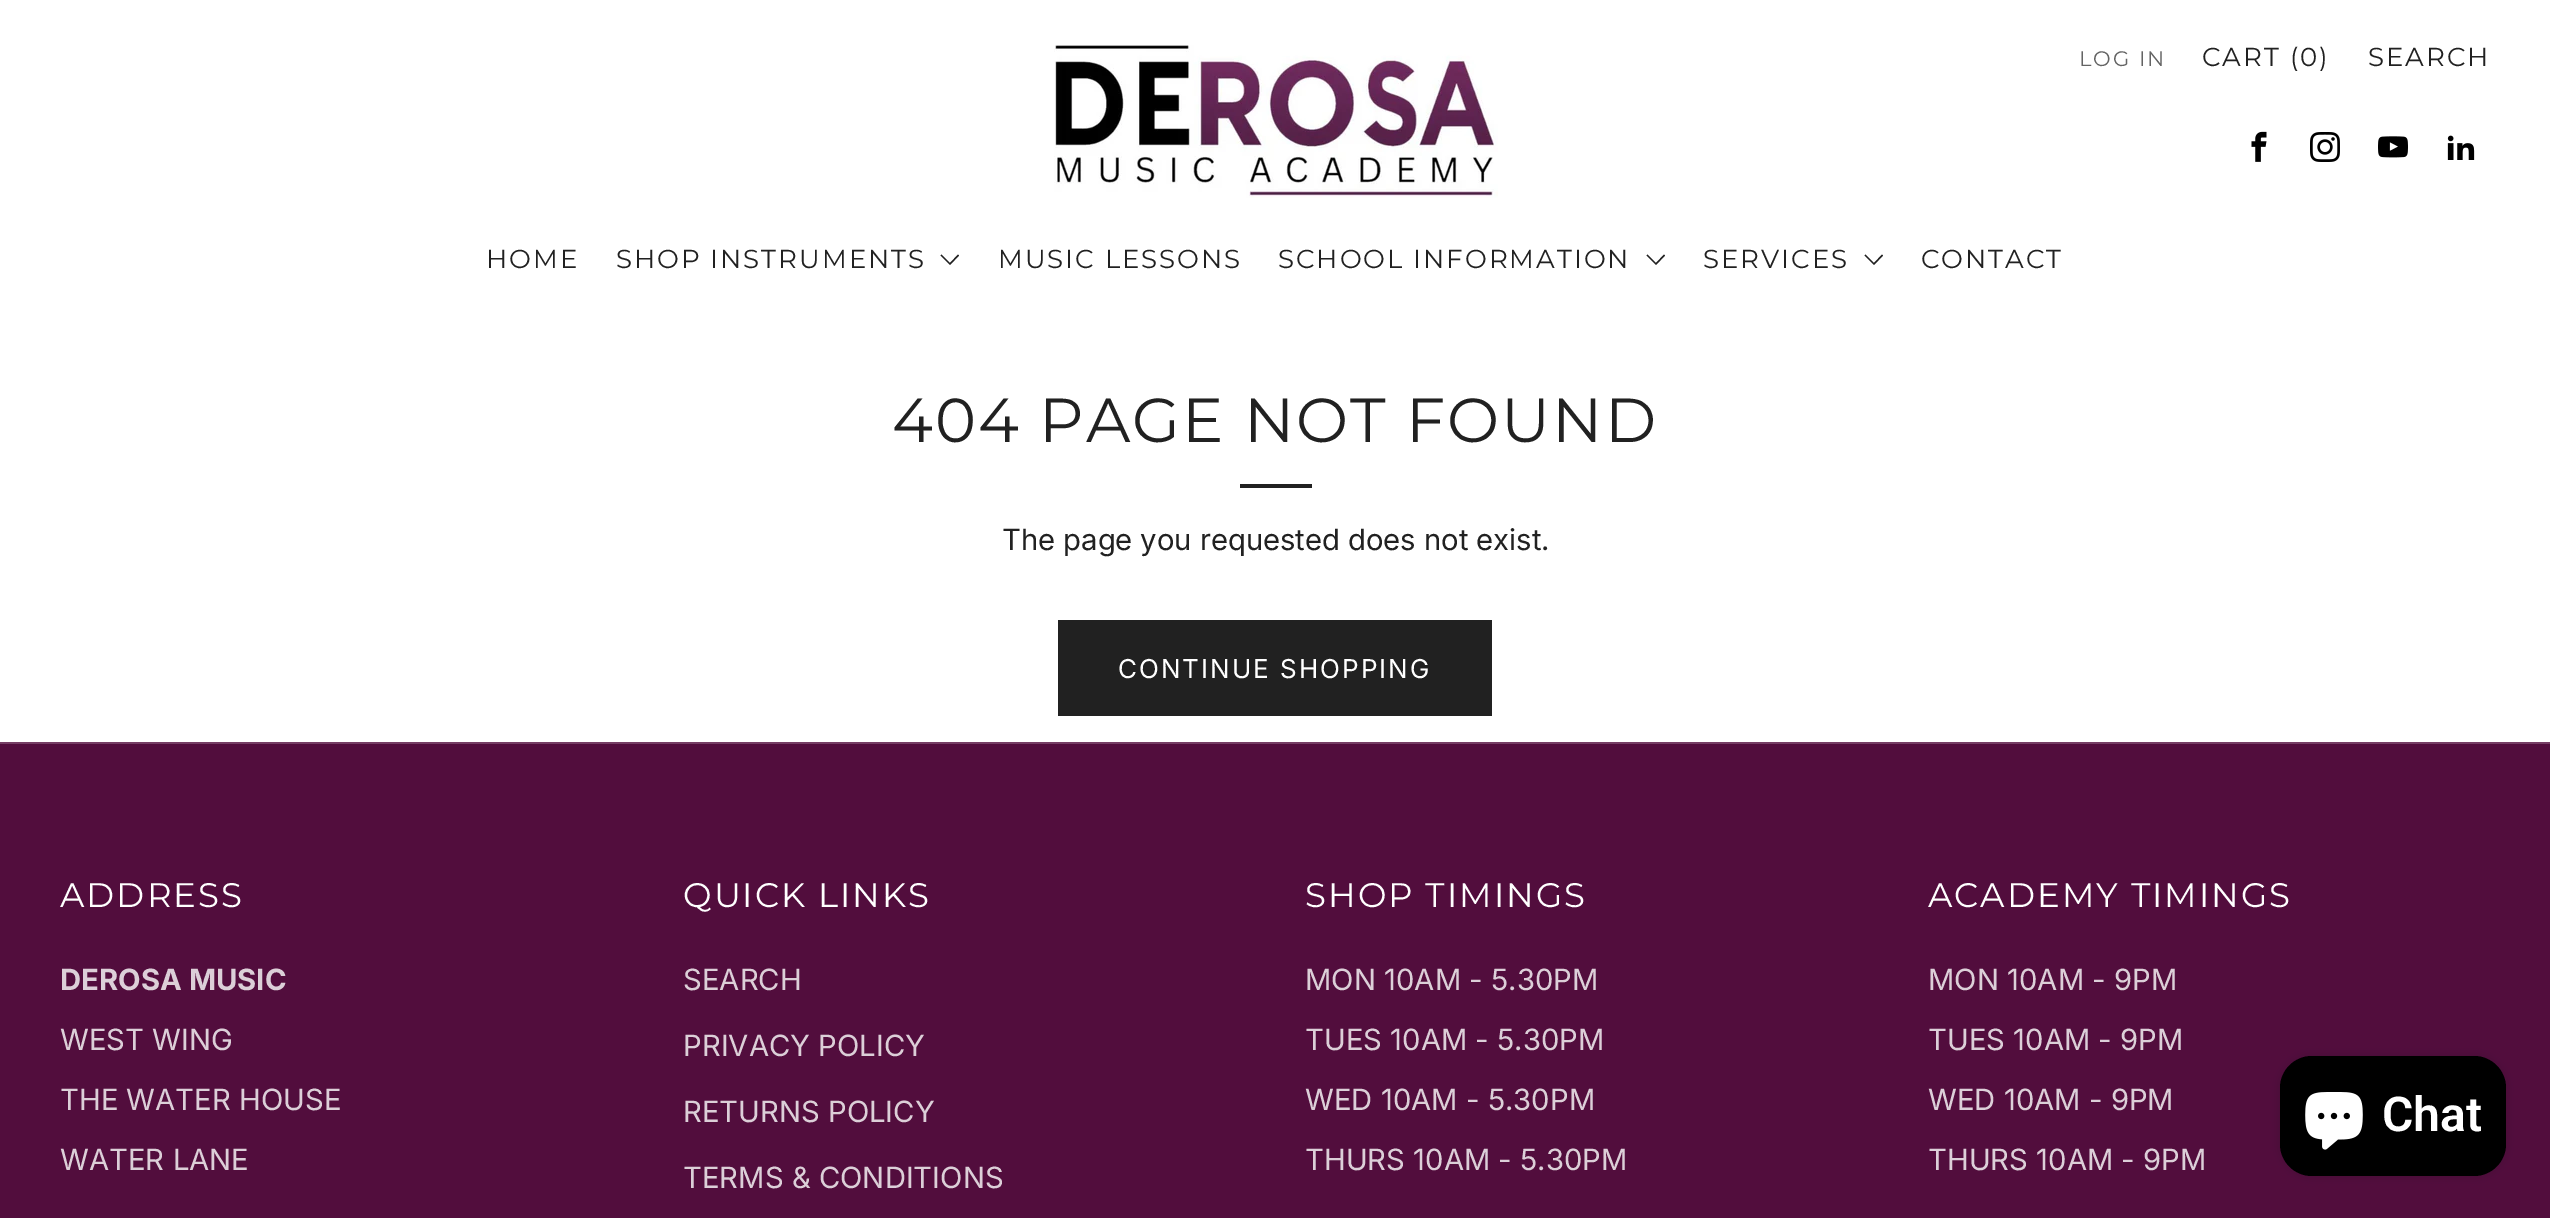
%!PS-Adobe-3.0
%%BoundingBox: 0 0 2550 1218
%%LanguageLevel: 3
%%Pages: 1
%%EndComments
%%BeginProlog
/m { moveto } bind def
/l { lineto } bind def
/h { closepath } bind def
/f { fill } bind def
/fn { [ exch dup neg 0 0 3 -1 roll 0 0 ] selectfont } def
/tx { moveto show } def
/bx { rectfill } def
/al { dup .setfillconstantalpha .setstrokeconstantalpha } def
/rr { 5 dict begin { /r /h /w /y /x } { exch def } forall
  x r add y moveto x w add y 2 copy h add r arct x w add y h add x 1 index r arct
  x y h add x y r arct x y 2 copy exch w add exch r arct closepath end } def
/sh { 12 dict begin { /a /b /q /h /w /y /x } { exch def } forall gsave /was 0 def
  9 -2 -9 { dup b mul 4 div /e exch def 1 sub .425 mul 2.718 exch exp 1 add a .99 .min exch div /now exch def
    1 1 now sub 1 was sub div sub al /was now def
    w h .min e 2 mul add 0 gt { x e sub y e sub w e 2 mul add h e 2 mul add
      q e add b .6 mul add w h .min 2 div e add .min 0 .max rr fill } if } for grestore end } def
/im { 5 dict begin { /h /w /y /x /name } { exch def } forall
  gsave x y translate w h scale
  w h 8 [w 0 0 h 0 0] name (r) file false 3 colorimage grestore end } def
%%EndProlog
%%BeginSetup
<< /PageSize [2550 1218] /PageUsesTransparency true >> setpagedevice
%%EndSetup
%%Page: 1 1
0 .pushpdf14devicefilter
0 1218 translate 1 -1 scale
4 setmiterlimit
1 setgray
0 0 2550 1218 bx
(image0.raw) 1054 45 444 153 im
/Montserrat-Regular 21 fn
0.392 setgray
2079 66 m 2 0 (LOG IN) ashow
/Montserrat-Regular 26 fn
0.129 setgray
2202 66 m 2 0 (CART \(0\)) ashow
2368 66 m 2 0 (SEARCH) ashow
(image1.raw) 2251 131 16 31 im
(image2.raw) 2310 132 30 30 im
(image3.raw) 2378 136 30 22 im
(image4.raw) 2447 135 28 25 im
486 268 m 2 0 (HOME) ashow
616 268 m 2 0 (SHOP INSTRUMENTS) ashow
941.5 254.5 m 940.5 255.5 l 950 265 l 959 255.5 l 958 254.5 l 950 263 l h f
998 268 m 2 0 (MUSIC LESSONS) ashow
1278 268 m 2 0 (SCHOOL INFORMATION) ashow
1647.5 254.5 m 1646.5 255.5 l 1656 265 l 1665 255.5 l 1664 254.5 l 1656 263 l h f
1703 268 m 2 0 (SERVICES) ashow
1865.5 254.5 m 1864.5 255.5 l 1874 265 l 1883 255.5 l 1882 254.5 l 1874 263 l h f
1921 268 m 2 0 (CONTACT) ashow
/Montserrat-Regular 62 fn
892 442 m 2 0 (404 PAGE NOT FOUND) ashow
1240 484 72 4 bx
/Inter-Regular 29.25 fn
1002 550 m -0.25 0 32 (The page you requested does not exist.) widthshow
1058 620 434 96 bx
/Inter-Regular 26 fn
1 setgray
1118 678 m 2 0 (CONTINUE SHOPPING) ashow
0.322 0.051 0.239 setrgbcolor
0 744 2550 474 bx
0.459 0.239 0.392 setrgbcolor
0 742 2550 2 bx
/Montserrat-Regular 34 fn
1 setgray
60 907 m 2 0 (ADDRESS) ashow
/Inter-Bold 29.25 fn
0.863 0.812 0.847 setrgbcolor
(DEROSA MUSIC) 60 990 tx
/Inter-Regular 29.25 fn
(WEST WING) 60 1050 tx
(THE WATER HOUSE) 60 1110 tx
(WATER LANE) 60 1170 tx
/Montserrat-Regular 34 fn
1 setgray
683 907 m 2 0 (QUICK LINKS) ashow
/Inter-Regular 29.25 fn
0.863 0.812 0.847 setrgbcolor
(SEARCH) 683 990 tx
(PRIVACY POLICY) 683 1056 tx
(RETURNS POLICY) 683 1122 tx
(TERMS & CONDITIONS) 683 1188 tx
/Montserrat-Regular 34 fn
1 setgray
1305 907 m 2 0 (SHOP TIMINGS) ashow
/Inter-Regular 29.25 fn
0.863 0.812 0.847 setrgbcolor
(MON 10AM - 5.30PM) 1305 990 tx
(TUES 10AM - 5.30PM) 1305 1050 tx
(WED 10AM - 5.30PM) 1305 1110 tx
(THURS 10AM - 5.30PM) 1305 1170 tx
/Montserrat-Regular 34 fn
1 setgray
1928 907 m 2 0 (ACADEMY TIMINGS) ashow
/Inter-Regular 29.25 fn
0.863 0.812 0.847 setrgbcolor
(MON 10AM - 9PM) 1928 990 tx
(TUES 10AM - 9PM) 1928 1050 tx
(WED 10AM - 9PM) 1928 1110 tx
(THURS 10AM - 9PM) 1928 1170 tx
0 setgray
2280 1056 226 120 32 5 0.15 sh
2280 1056 226 120 32 rr f
(image5.raw) 2305 1092 58 58 im
/Roboto-SemiBold 48 fn
1 setgray
(Chat) 2382 1131 tx
.poppdf14devicefilter showpage
%%EOF
